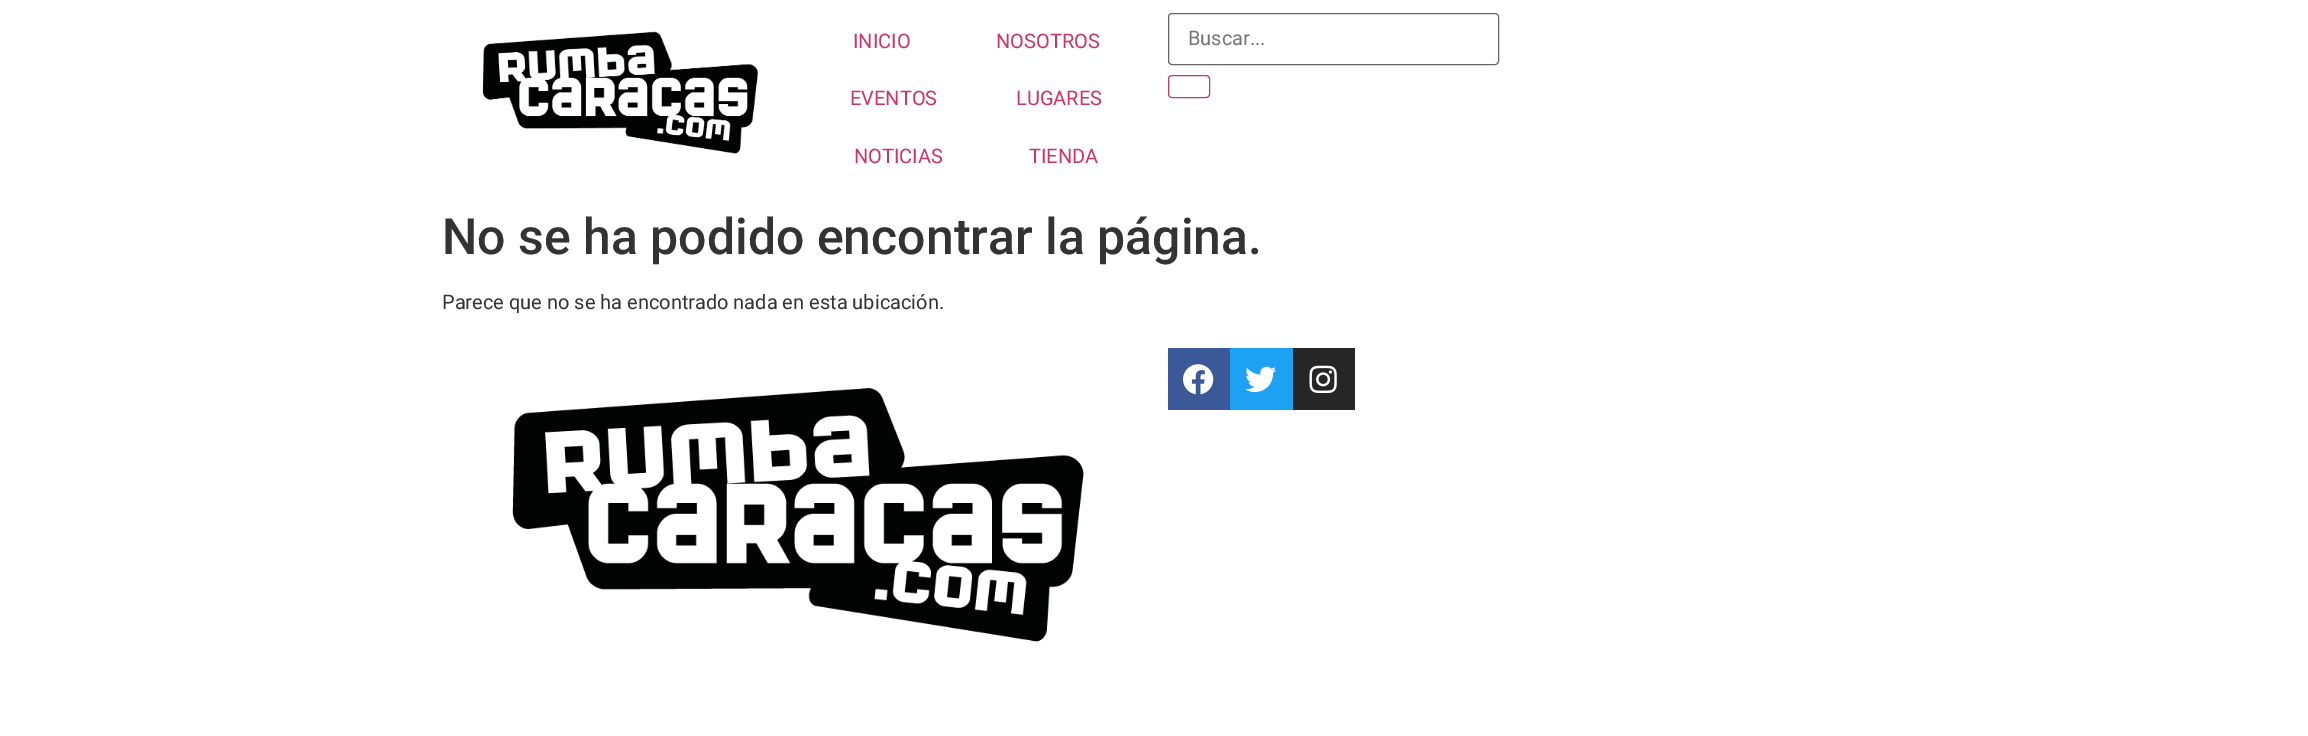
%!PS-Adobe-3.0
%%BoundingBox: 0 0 2308 736
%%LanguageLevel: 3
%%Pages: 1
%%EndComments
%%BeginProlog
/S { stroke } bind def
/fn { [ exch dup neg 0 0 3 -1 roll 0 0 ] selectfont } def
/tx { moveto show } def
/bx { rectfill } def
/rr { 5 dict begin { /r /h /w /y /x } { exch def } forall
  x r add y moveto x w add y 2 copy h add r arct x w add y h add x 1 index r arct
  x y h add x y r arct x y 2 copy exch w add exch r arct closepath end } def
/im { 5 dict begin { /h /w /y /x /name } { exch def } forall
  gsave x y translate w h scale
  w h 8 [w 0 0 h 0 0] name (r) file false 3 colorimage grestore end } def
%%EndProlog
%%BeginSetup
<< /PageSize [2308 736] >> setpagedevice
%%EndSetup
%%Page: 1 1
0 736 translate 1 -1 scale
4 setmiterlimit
1 setgray
0 0 2308 736 bx
(image0.raw) 482 31 277 123 im
/Roboto-Regular 20 fn
0.8 0.2 0.4 setrgbcolor
(INICIO) 853 48 tx
(NOSOTROS) 996 48 tx
(EVENTOS) 850 105 tx
(LUGARES) 1016 105 tx
(NOTICIAS) 854 163 tx
(TIENDA) 1029 163 tx
0.4 setgray
1168.5 13.5 330 51 3.5 rr S
0.459 setgray
(Buscar...) 1188 45 tx
0.8 0.2 0.4 setrgbcolor
1168.5 75.5 41 22 3.5 rr S
/Roboto-Medium 50 fn
0.2 setgray
(No se ha podido encontrar la página.) 442 254 tx
/Roboto-Regular 20 fn
(Parece que no se ha encontrado nada en esta ubicación.) 442 309 tx
0.231 0.349 0.596 setrgbcolor
1168 348 62 62 bx
(image1.raw) 1183 364 31 31 im
0.114 0.631 0.949 setrgbcolor
1230 348 63 62 bx
(image2.raw) 1245 366 31 27 im
0.149 setgray
1293 348 62 62 bx
(image3.raw) 1309 365 28 29 im
(image4.raw) 512 388 572 254 im
showpage
%%EOF
